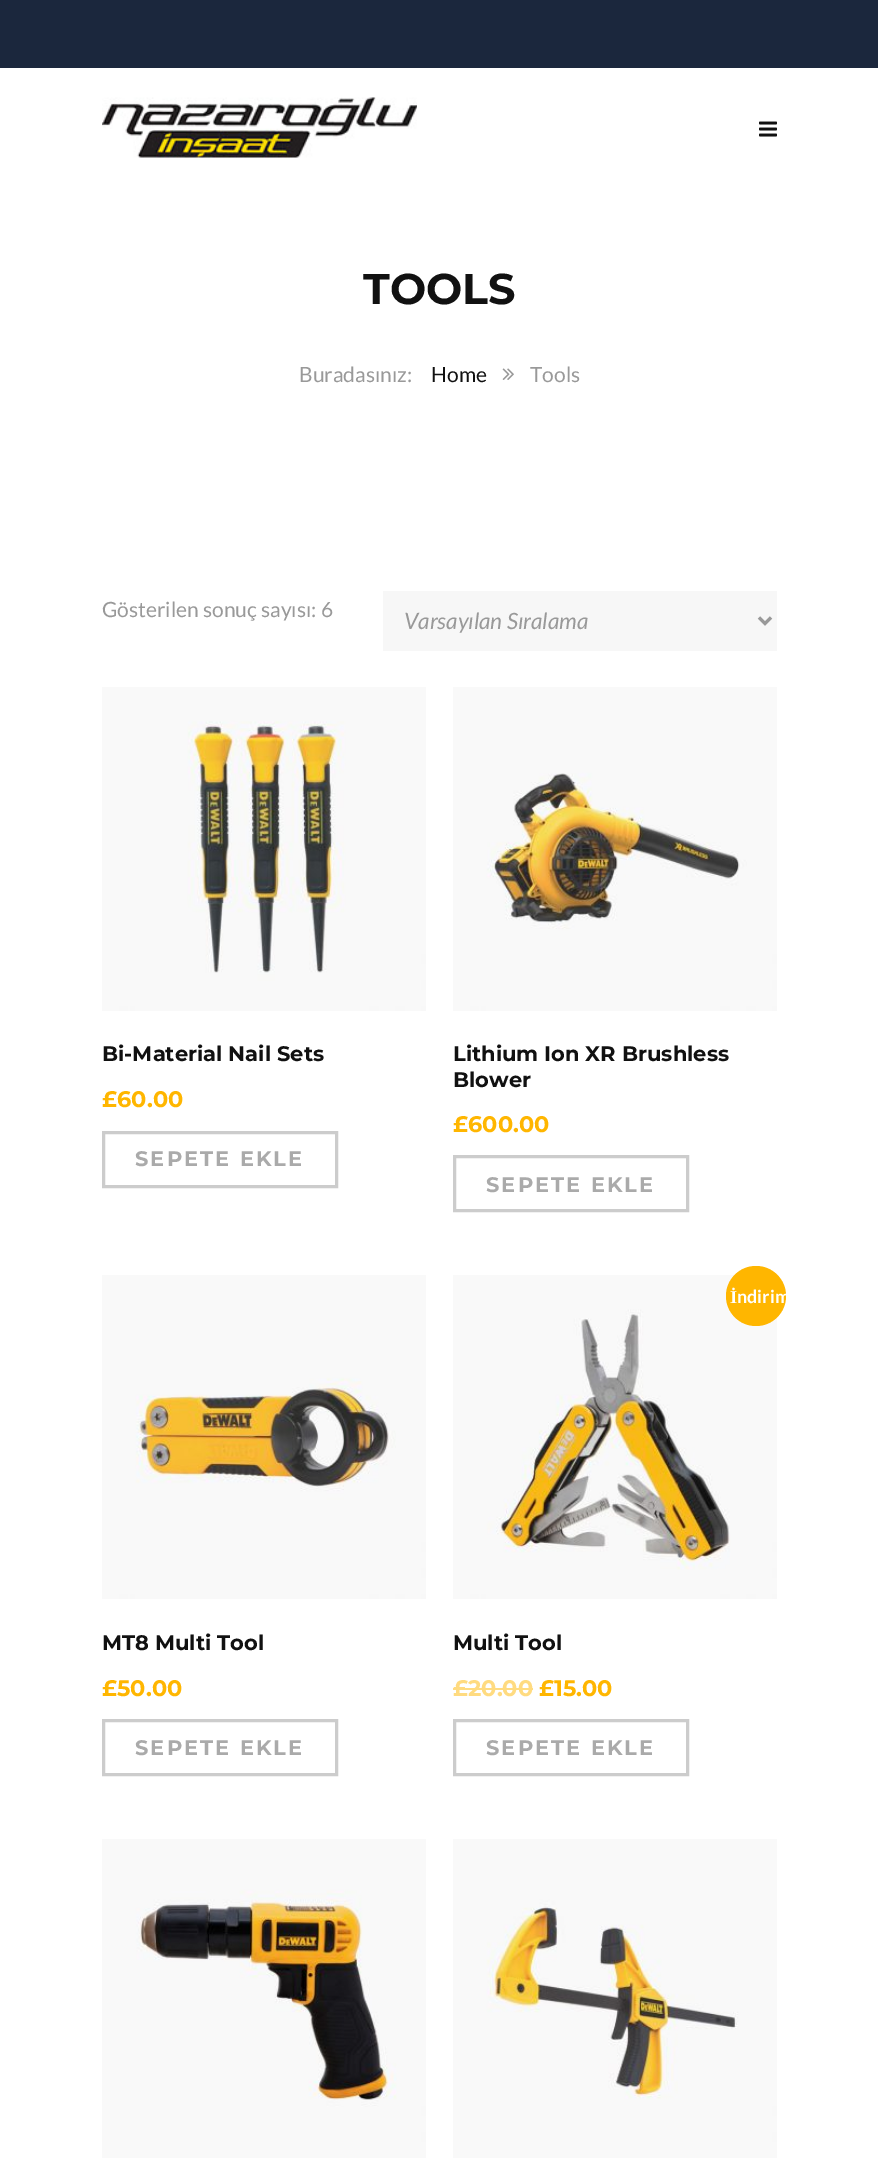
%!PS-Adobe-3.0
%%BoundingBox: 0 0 878 2158
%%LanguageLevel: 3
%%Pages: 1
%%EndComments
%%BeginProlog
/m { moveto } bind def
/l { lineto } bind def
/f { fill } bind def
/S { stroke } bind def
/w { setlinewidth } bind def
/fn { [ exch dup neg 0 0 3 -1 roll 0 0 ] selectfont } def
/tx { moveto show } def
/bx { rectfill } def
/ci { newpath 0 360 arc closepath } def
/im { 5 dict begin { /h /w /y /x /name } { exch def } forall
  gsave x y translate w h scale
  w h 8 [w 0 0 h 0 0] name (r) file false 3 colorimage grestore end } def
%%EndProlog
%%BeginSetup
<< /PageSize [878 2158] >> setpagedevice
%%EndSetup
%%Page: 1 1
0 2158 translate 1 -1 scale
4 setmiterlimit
1 setgray
0 0 878 2158 bx
0.106 0.153 0.239 setrgbcolor
0 0 878 68 bx
(image0.raw) 102 97 315 61 im
(image1.raw) 759 121 18 16 im
/Montserrat-Bold 43 fn
0.067 setgray
(TOOLS) 363 304 tx
/Lato-Regular 21 fn
0.6 setgray
(Buradasınız:) 299 382 tx
0.067 setgray
(Home) 431 382 tx
(image2.raw) 502 368 12 12 im
0.6 setgray
(Tools) 530 382 tx
(Gösterilen sonuç sayısı: 6) 102 617 tx
0.969 setgray
383 591 394 60 bx
0.6 setgray
3 w
759 617.5 m 765 623.5 l 771 617.5 l S
/Lato-Italic 22.5 fn
(Varsayılan Sıralama) 404 629 tx
(image3.raw) 102 687 324 324 im
/Montserrat-Bold 21 fn
0.067 setgray
(Bi-Material Nail Sets) 102 1061 tx
/Montserrat-Bold 22.5 fn
1 0.714 0 setrgbcolor
(£60.00) 102 1107 tx
0.8 setgray
103.5 1132.5 233 54 rectstroke
/Montserrat-Bold 21 fn
0.667 setgray
135 1166 m 2.1 0 (SEPETE EKLE) ashow
(image4.raw) 453 687 324 324 im
0.067 setgray
(Lithium Ion XR Brushless) 453 1061 tx
(Blower) 453 1087 tx
/Montserrat-Bold 22.5 fn
1 0.714 0 setrgbcolor
(£600.00) 453 1132 tx
0.8 setgray
454.5 1156.5 233 54 rectstroke
/Montserrat-Bold 21 fn
0.667 setgray
486 1192 m 2.1 0 (SEPETE EKLE) ashow
(image5.raw) 102 1275 324 324 im
0.067 setgray
(MT8 Multi Tool) 102 1650 tx
/Montserrat-Bold 22.5 fn
1 0.714 0 setrgbcolor
(£50.00) 102 1696 tx
0.8 setgray
103.5 1720.5 233 54 rectstroke
/Montserrat-Bold 21 fn
0.667 setgray
135 1755 m 2.1 0 (SEPETE EKLE) ashow
(image6.raw) 453 1275 324 324 im
1 0.714 0 setrgbcolor
756 1296 30 ci f
/LiberationSerif-Bold 18 fn
1 setgray
(İ) 730 1303 tx
/Lato-Bold 18 fn
(ndirim) 737 1303 tx
/Montserrat-Bold 21 fn
0.067 setgray
(Multi Tool) 453 1650 tx
/Montserrat-Bold 22.5 fn
1 0.859 0.502 setrgbcolor
(£20.00) 453 1696 tx
453 1688 80 2 bx
1 0.714 0 setrgbcolor
(£15.00) 539 1696 tx
0.8 setgray
454.5 1720.5 233 54 rectstroke
/Montserrat-Bold 21 fn
0.667 setgray
486 1755 m 2.1 0 (SEPETE EKLE) ashow
(image7.raw) 102 1839 324 319 im
(image8.raw) 453 1839 324 319 im
showpage
%%EOF
